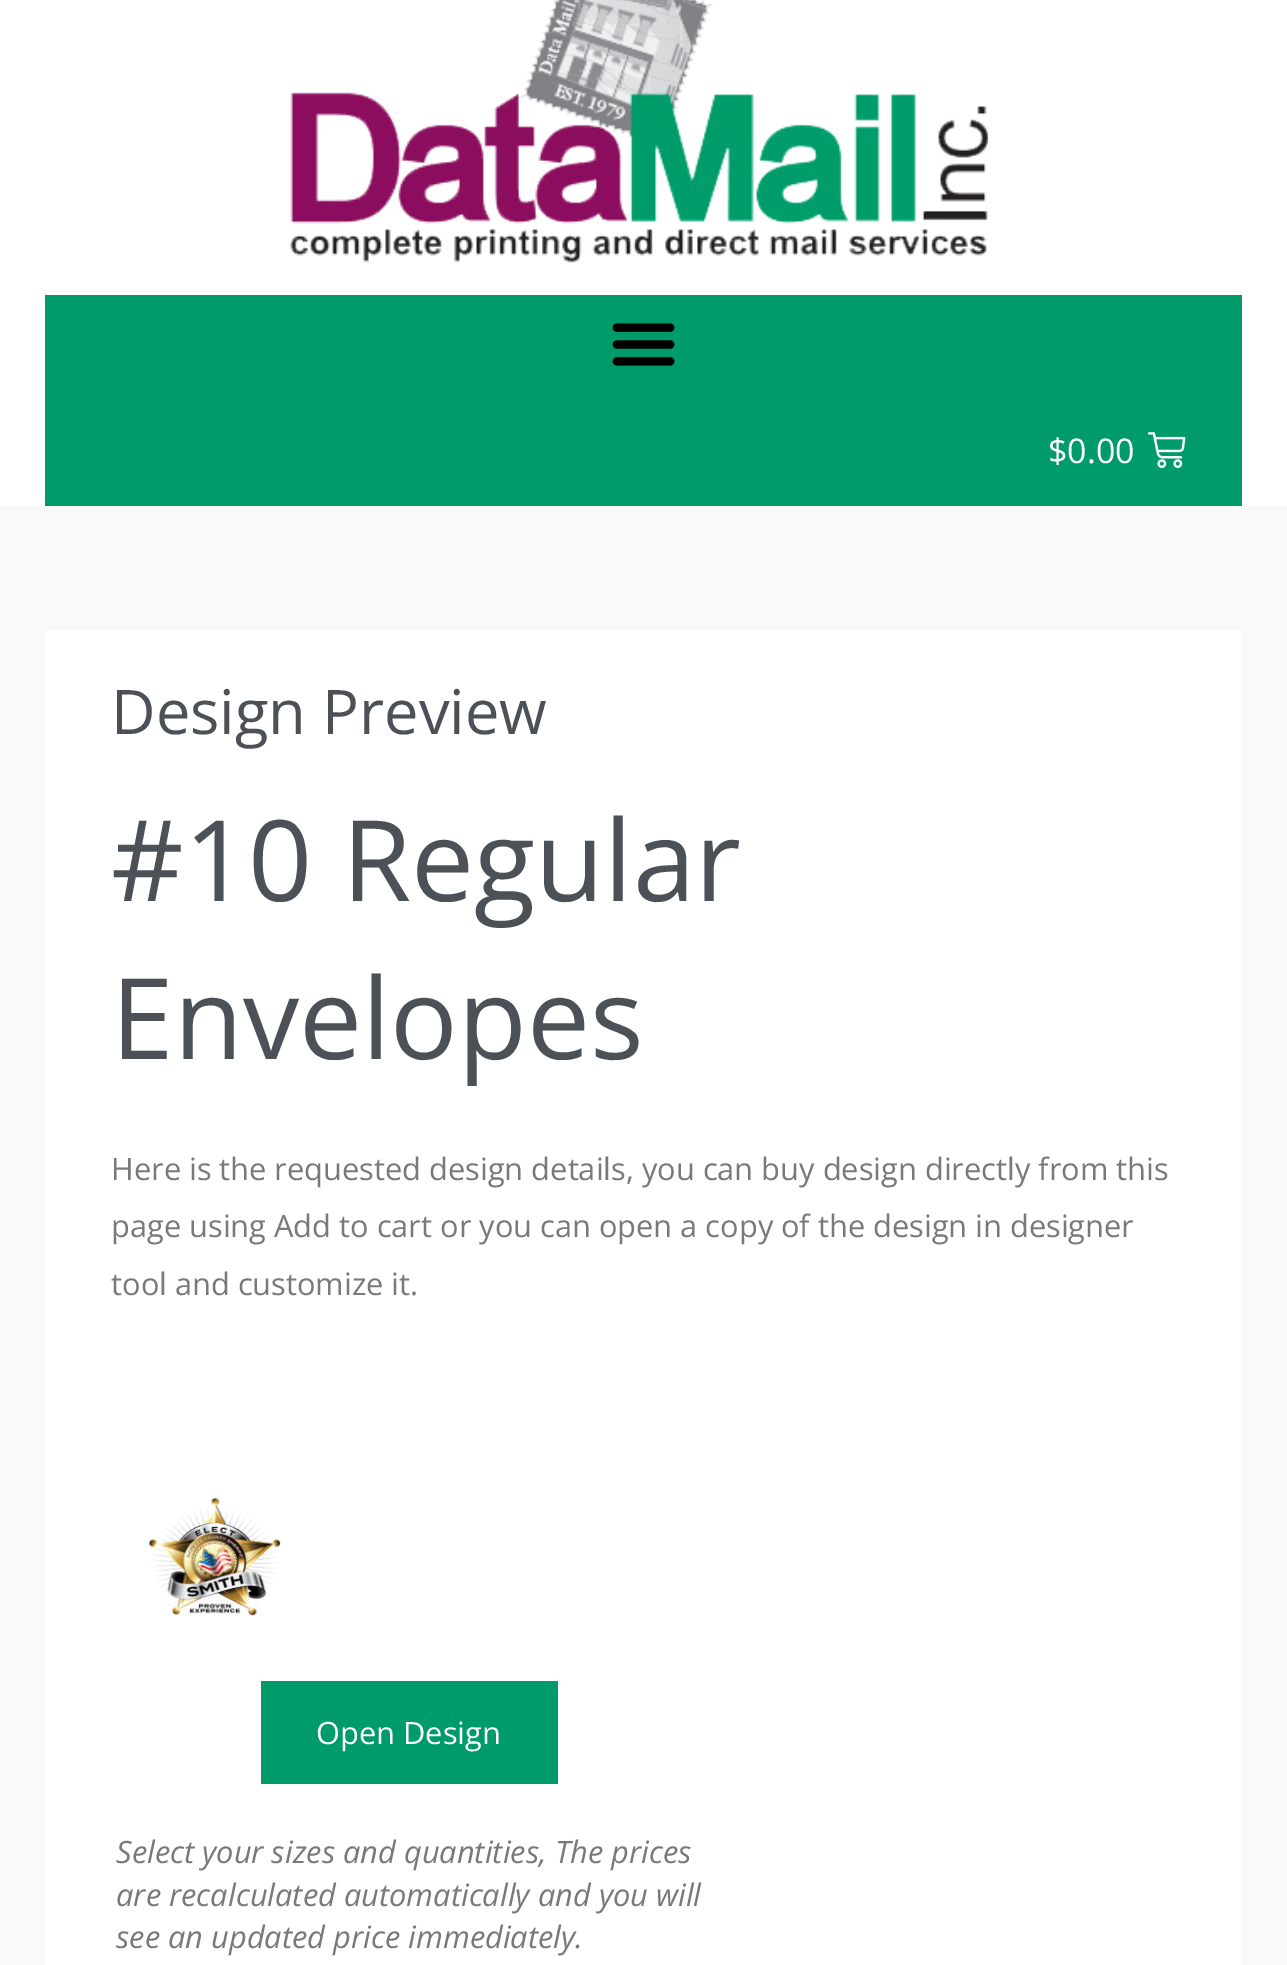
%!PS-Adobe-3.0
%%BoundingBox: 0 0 1287 1965
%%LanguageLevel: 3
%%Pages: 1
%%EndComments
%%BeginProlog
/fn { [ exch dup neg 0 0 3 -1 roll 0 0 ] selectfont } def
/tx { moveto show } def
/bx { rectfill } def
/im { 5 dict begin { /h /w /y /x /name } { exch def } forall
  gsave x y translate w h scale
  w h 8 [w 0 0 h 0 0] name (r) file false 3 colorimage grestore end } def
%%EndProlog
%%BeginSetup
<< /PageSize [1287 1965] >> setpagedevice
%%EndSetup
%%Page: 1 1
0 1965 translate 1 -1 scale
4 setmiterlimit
0.976 setgray
0 0 1287 1965 bx
1 setgray
0 0 1287 506 bx
(image0.raw) 290 0 700 263 im
0 0.608 0.42 setrgbcolor
45 295 1197 211 bx
(image1.raw) 612 323 63 43 im
/OpenSans-Regular 34 fn
1 setgray
($0.00) 1048 463 tx
(image2.raw) 1147 432 39 36 im
45 630 1197 1335 bx
/OpenSans-Regular 61.5 fn
0.298 0.318 0.341 setrgbcolor
(Design Preview) 111 734 tx
/OpenSans-Regular 112.5 fn
(#10 Regular) 111 901 tx
(Envelopes) 111 1059 tx
/OpenSans-Regular 30.8 fn
0.475 setgray
(Here is the requested design details, you can buy design directly from this) 111 1180 tx
(page using Add to cart or you can open a copy of the design in designer) 111 1237 tx
(tool and customize it.) 111 1295 tx
(image3.raw) 149 1497 132 119 im
0 0.608 0.42 setrgbcolor
261 1681 297 103 bx
1 setgray
(Open Design) 316 1744 tx
/OpenSans-Italic 30.8 fn
0.475 setgray
(Select your sizes and quantities, The prices) 116 1863 tx
(are recalculated automatically and you will) 116 1906 tx
(see an updated price immediately.) 116 1948 tx
showpage
%%EOF
